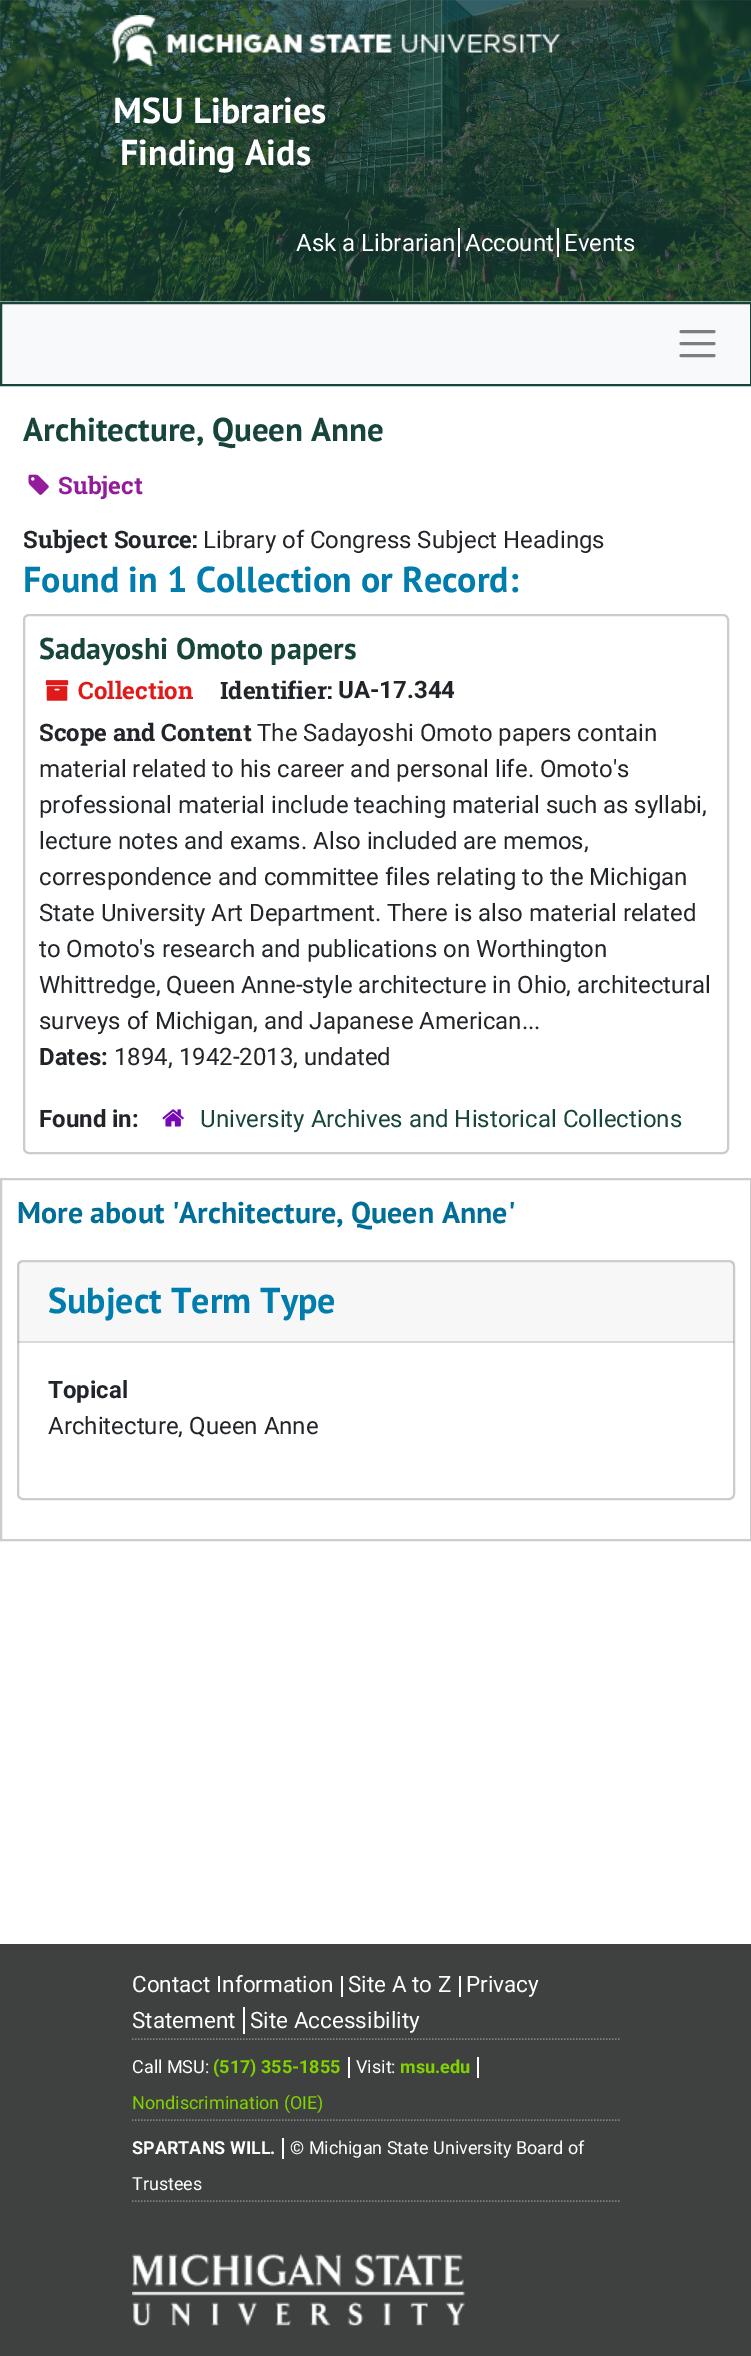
%!PS-Adobe-3.0
%%BoundingBox: 0 0 751 2356
%%LanguageLevel: 3
%%Pages: 1
%%EndComments
%%BeginProlog
/m { moveto } bind def
/l { lineto } bind def
/h { closepath } bind def
/f { fill } bind def
/S { stroke } bind def
/q { gsave } bind def
/Q { grestore } bind def
/w { setlinewidth } bind def
/fn { [ exch dup neg 0 0 3 -1 roll 0 0 ] selectfont } def
/tx { moveto show } def
/bx { rectfill } def
/al { dup .setfillconstantalpha .setstrokeconstantalpha } def
/rr { 5 dict begin { /r /h /w /y /x } { exch def } forall
  x r add y moveto x w add y 2 copy h add r arct x w add y h add x 1 index r arct
  x y h add x y r arct x y 2 copy exch w add exch r arct closepath end } def
/im { 5 dict begin { /h /w /y /x /name } { exch def } forall
  gsave x y translate w h scale
  w h 8 [w 0 0 h 0 0] name (r) file false 3 colorimage grestore end } def
%%EndProlog
%%BeginSetup
<< /PageSize [751 2356] /PageUsesTransparency true >> setpagedevice
%%EndSetup
%%Page: 1 1
0 .pushpdf14devicefilter
0 2356 translate 1 -1 scale
4 setmiterlimit
1 setgray
0 0 751 2356 bx
(image0.raw) 0 0 751 302 im
(image1.raw) 112 15 448 51 im
/PTSans-Bold 36 fn
(MSU Libraries) 113 123 tx
(Finding Aids) 120 165 tx
/Roboto-Regular 24 fn
(Ask a Librarian) 296 251 tx
458 228 2 29 bx
(Account) 465 251 tx
557 228 2 29 bx
(Events) 564 251 tx
0.973 0.976 0.98 setrgbcolor
1 303 m 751 303 l 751 385 l 1 385 l h q f Q
0.094 0.271 0.231 setrgbcolor
2 w
S
0.486 0.49 0.49 setrgbcolor
3 w
1 setlinecap
681 331.5 m 714 331.5 l 681 343.5 m 714 343.5 l 681 355.5 m 714 355.5 l S
/PTSans-Bold 33 fn
0.094 0.271 0.231 setrgbcolor
(Architecture, Queen Anne) 23 441 tx
(image2.raw) 28 474 21 21 im
/RobotoSlab-Bold 24 fn
0.58 0.11 0.604 setrgbcolor
(Subject) 58 494 tx
0.129 0.145 0.161 setrgbcolor
(Subject Source:) 23 548 tx
/Roboto-Regular 24 fn
(Library of Congress Subject Headings) 203 548 tx
/PTSans-Bold 36 fn
0 0.486 0.678 setrgbcolor
(Found in 1 Collection or Record:) 23 592 tx
0.8 setgray
2 w
0 setlinecap
24 615 704 538 5 rr S
/PTSans-Bold 30 fn
0.094 0.271 0.231 setrgbcolor
(Sadayoshi Omoto papers) 39 659 tx
(image3.raw) 45 680 24 21 im
/RobotoSlab-Bold 24 fn
0.878 0.098 0.098 setrgbcolor
(Collection) 78 699 tx
0.129 0.145 0.161 setrgbcolor
(Identifier:) 220 699 tx
/Roboto-Bold 24 fn
(UA-17.344) 338 698 tx
/RobotoSlab-Bold 24 fn
(Scope and Content) 39 741 tx
/Roboto-Regular 24 fn
(The Sadayoshi Omoto papers contain) 257 741 tx
(material related to his career and personal life. Omoto's) 39 777 tx
(professional material include teaching material such as syllabi,) 39 813 tx
(lecture notes and exams. Also included are memos,) 39 849 tx
(correspondence and committee files relating to the Michigan) 39 885 tx
(State University Art Department. There is also material related) 39 921 tx
(to Omoto's research and publications on Worthington) 39 957 tx
(Whittredge, Queen Anne-style architecture in Ohio, architectural) 39 993 tx
(surveys of Michigan, and Japanese American...) 39 1029 tx
/Roboto-Bold 24 fn
(Dates:) 39 1065 tx
/Roboto-Regular 24 fn
(1894, 1942-2013, undated) 114 1065 tx
/Roboto-Bold 24 fn
(Found in:) 39 1127 tx
(image4.raw) 162 1109 22 18 im
/Roboto-Regular 24 fn
0.094 0.271 0.231 setrgbcolor
(University Archives and Historical Collections) 200 1127 tx
0.8 setgray
1 1179 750 361 rectstroke
/PTSans-Bold 30 fn
0 0.431 0.6 setrgbcolor
(More about 'Architecture, Queen Anne') 17 1223 tx
0.8 setgray
18 1261 716 238 5 rr S
0.03 al
0 setgray
18 1262 716 81 bx
0.12 al
18 1341 716 2 bx
/PTSans-Bold 36 fn
1 al
0 0.486 0.678 setrgbcolor
(Subject Term Type) 48 1313 tx
/Roboto-Bold 24 fn
0.129 0.145 0.161 setrgbcolor
(Topical) 48 1398 tx
/Roboto-Regular 24 fn
(Architecture, Queen Anne) 48 1434 tx
0.243 0.255 0.251 setrgbcolor
0 1944 751 412 bx
0.502 setgray
1.5 w
[1.5 1.5] 0 setdash
132 2039 m 619.5 2039 l S
/Roboto-Regular 22.5 fn
1 setgray
(Contact Information) 132 1992 tx
341 1976 2 21 bx
(Site A to Z) 348 1992 tx
459 1976 2 21 bx
(Privacy) 466 1992 tx
(Statement) 132 2028 tx
243 2007 2 27 bx
(Site Accessibility) 250 2028 tx
0.502 setgray
132 2120 m 619.5 2120 l S
/Roboto-Regular 18 fn
1 setgray
(Call MSU:) 132 2073 tx
/Roboto-Bold 18 fn
0.506 0.827 0 setrgbcolor
(\(517\) 355-1855) 213 2073 tx
1 setgray
348 2057 2 21 bx
/Roboto-Regular 18 fn
(Visit:) 356 2073 tx
/Roboto-Bold 18 fn
0.506 0.827 0 setrgbcolor
(msu.edu) 400 2073 tx
1 setgray
477 2057 2 21 bx
/Roboto-Regular 18 fn
0.506 0.827 0 setrgbcolor
(Nondiscrimination \(OIE\)) 132 2109 tx
0.502 setgray
132 2201 m 619.5 2201 l S
/Roboto-Bold 18 fn
1 setgray
(SPARTANS WILL.) 132 2154 tx
282 2138 2 21 bx
/Roboto-Regular 18 fn
(© Michigan State University Board of) 290 2154 tx
(Trustees) 132 2190 tx
(image5.raw) 132 2254 333 73 im
.poppdf14devicefilter showpage
%%EOF
